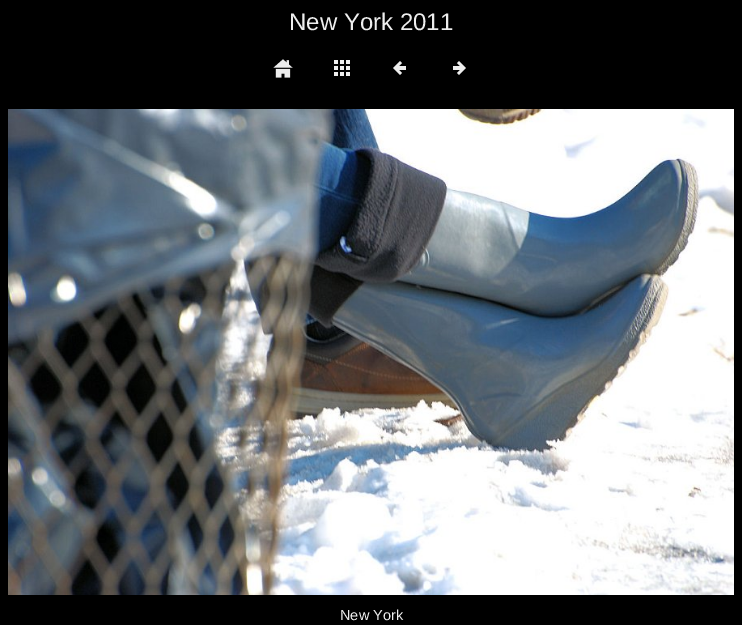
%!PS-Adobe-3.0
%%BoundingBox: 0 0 742 625
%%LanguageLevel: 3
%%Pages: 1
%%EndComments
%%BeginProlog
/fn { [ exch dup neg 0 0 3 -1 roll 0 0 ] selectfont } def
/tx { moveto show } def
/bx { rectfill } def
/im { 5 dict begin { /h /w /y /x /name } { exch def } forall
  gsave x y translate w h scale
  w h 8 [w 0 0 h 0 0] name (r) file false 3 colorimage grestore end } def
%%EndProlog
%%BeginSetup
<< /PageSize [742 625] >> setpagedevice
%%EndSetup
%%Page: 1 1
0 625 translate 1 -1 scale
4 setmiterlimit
0 setgray
0 0 742 625 bx
/LiberationSans-Regular 24 fn
0.933 setgray
(New York 2011) 289 30 tx
(image0.raw) 273 59 20 19 im
(image1.raw) 334 60 16 16 im
(image2.raw) 393 61 13 14 im
(image3.raw) 453 61 13 14 im
(image4.raw) 8 109 726 486 im
/LiberationSans-Regular 14.5 fn
(New York) 340 620 tx
showpage
%%EOF
